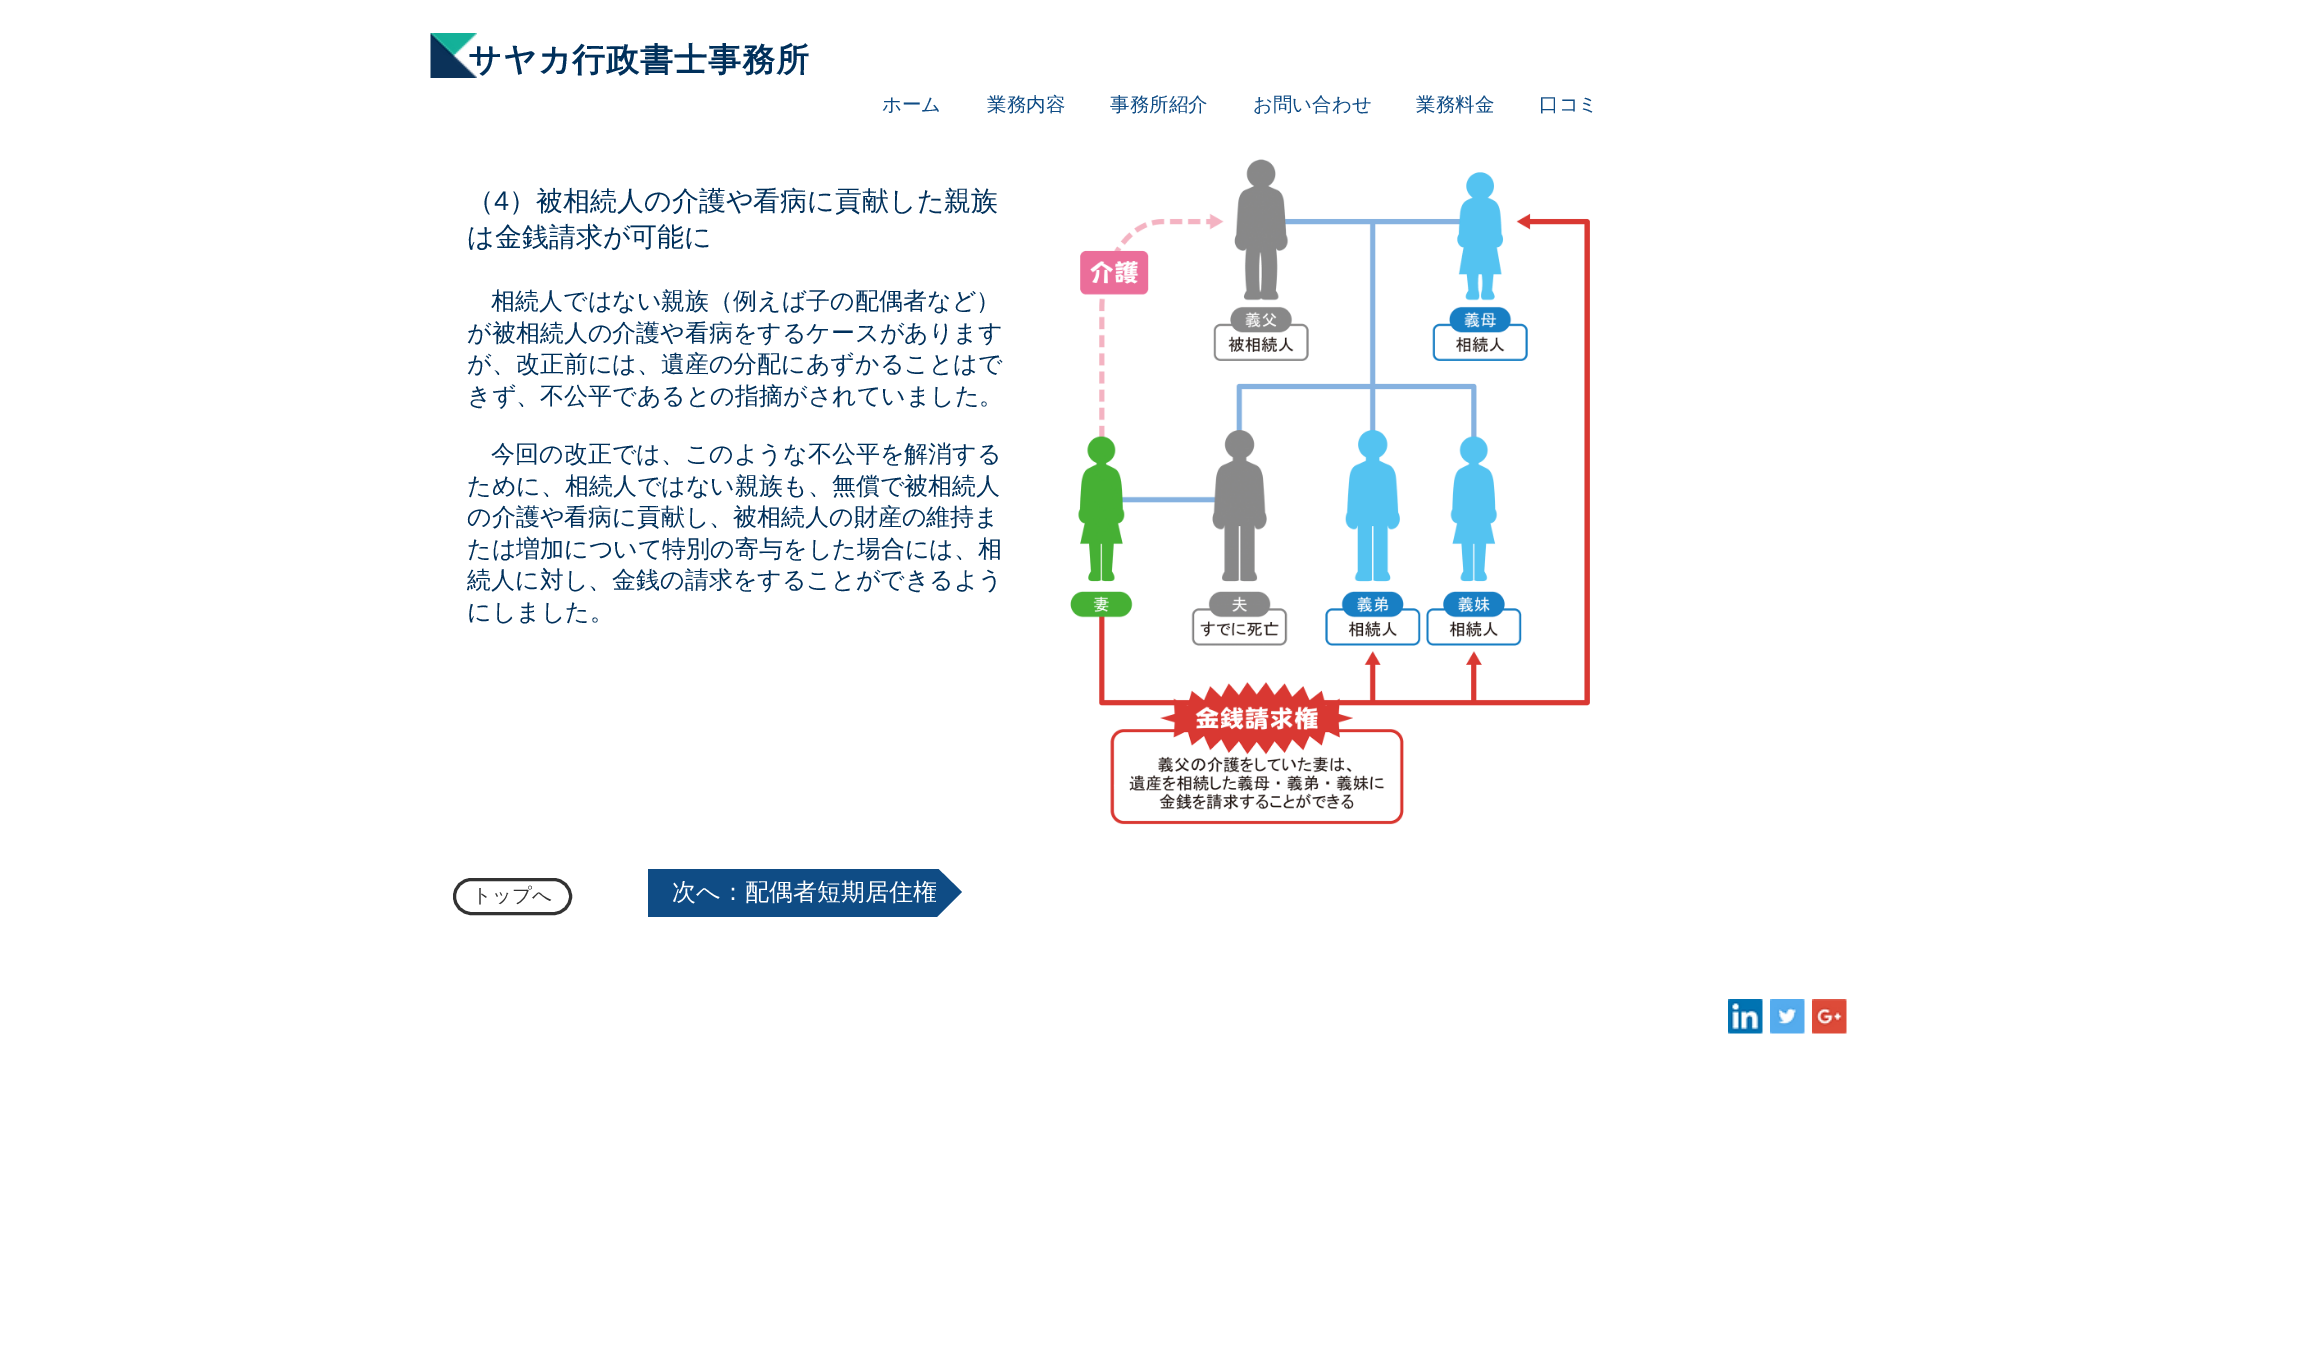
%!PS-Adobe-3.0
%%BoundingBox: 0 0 2316 1352
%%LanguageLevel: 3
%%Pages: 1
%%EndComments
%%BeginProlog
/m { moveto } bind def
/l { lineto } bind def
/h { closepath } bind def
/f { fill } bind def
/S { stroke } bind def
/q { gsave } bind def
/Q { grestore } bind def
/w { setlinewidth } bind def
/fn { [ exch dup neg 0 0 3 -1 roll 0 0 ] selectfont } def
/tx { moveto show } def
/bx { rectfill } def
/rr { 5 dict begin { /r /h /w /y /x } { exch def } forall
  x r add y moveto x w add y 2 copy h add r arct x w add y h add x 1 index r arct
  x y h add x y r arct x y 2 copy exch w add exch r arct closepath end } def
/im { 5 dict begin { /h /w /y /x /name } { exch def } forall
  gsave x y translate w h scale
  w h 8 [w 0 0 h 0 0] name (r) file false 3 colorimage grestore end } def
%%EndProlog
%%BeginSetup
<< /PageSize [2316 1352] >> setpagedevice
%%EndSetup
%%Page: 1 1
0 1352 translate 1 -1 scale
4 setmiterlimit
1 setgray
0 0 2316 1352 bx
(image0.raw) 430 33 47 45 im
/WenQuanYiZenHei-Bold 33 fn
0 0.188 0.357 setrgbcolor
468 71 m 1 0 (サヤカ行政書士事務所) ashow
/WenQuanYiZenHei-Medium 19.5 fn
0.059 0.298 0.522 setrgbcolor
(ホーム) 882 111 tx
(業務内容) 987 111 tx
(事務所紹介) 1110 111 tx
(お問い合わせ) 1253 111 tx
(業務料金) 1416 111 tx
(口コミ) 1539 111 tx
/WenQuanYiZenHei-Medium 27 fn
0 0.188 0.357 setrgbcolor
(（) 467 210 tx
/LiberationSans-Regular 27 fn
(4) 494 210 tx
/WenQuanYiZenHei-Medium 27 fn
(）被相続人の介護や看病に貢献した親族) 509 210 tx
(は金銭請求が可能に) 467 246 tx
/WenQuanYiZenHei-Medium 24 fn
(相続人ではない親族（例えば子の配偶者など）) 491 309 tx
(が被相続人の介護や看病をするケースがあります) 467 341 tx
(が、改正前には、遺産の分配にあずかることはで) 467 372 tx
(きず、不公平であるとの指摘がされていました。) 467 404 tx
(今回の改正では、このような不公平を解消する) 491 462 tx
(ために、相続人ではない親族も、無償で被相続人) 467 494 tx
(の介護や看病に貢献し、被相続人の財産の維持ま) 467 525 tx
(たは増加について特別の寄与をした場合には、相) 467 557 tx
(続人に対し、金銭の請求をすることができるよう) 467 588 tx
(にしました。) 467 620 tx
(image1.raw) 1070 159 520 666 im
0.196 setgray
3 w
454.5 879.5 116 34 17 rr S
/WenQuanYiZenHei-Medium 19.5 fn
(トップへ) 472 902 tx
0.059 0.298 0.522 setrgbcolor
648 869 238 48 bx
q
648 869 314 48 rectclip
962 892 m 886 892 l 886 818 l h f
886 892 m 962 892 l 886 968 l h f
Q
/WenQuanYiZenHei-Medium 24 fn
1 setgray
(次へ：配偶者短期居住権) 672 900 tx
(image2.raw) 1728 999 35 35 im
(image3.raw) 1770 999 35 35 im
(image4.raw) 1812 999 35 35 im
showpage
%%EOF
